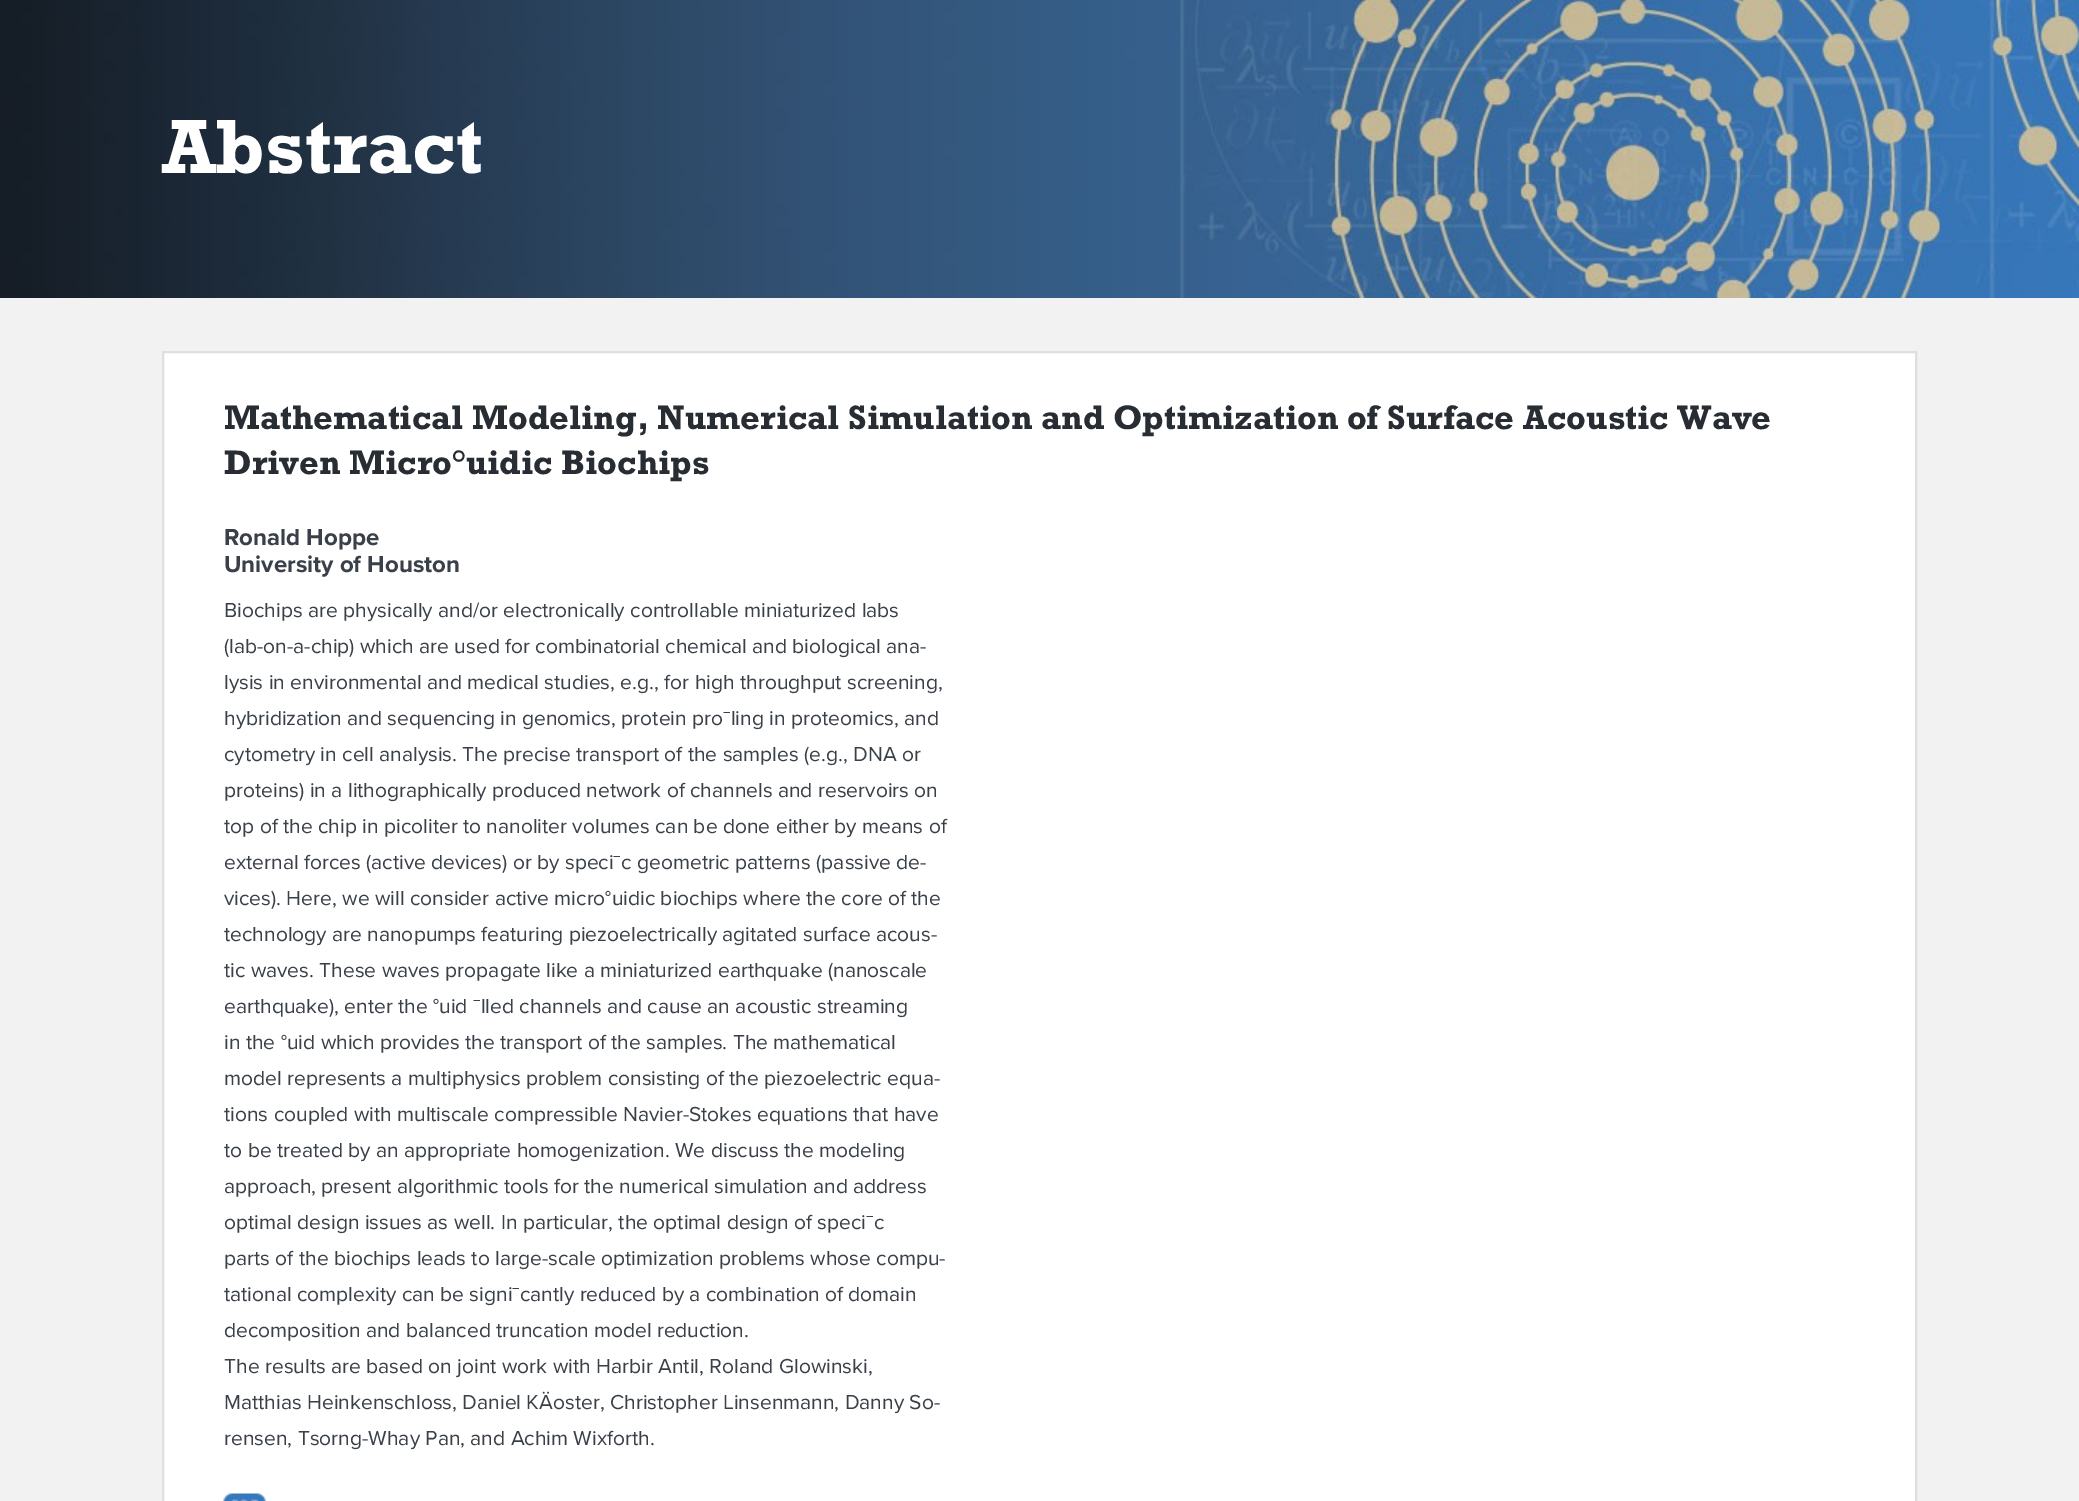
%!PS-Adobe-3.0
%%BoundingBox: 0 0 2079 1501
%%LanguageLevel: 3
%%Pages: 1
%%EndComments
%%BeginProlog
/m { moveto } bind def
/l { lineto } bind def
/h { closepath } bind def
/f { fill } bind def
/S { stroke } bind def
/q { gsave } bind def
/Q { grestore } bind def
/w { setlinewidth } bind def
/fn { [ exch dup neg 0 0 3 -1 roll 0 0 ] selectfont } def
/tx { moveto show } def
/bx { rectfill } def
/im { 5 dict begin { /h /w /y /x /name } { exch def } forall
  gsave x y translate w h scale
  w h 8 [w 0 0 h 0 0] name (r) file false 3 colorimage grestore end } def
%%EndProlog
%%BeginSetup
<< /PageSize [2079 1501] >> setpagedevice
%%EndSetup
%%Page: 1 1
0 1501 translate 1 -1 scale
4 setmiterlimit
0.949 setgray
0 0 2079 1501 bx
(image0.raw) 0 0 2079 298 im
/Rockwell-Bold 78 fn
1 setgray
(Abstract) 162 173 tx
163 352 m 1916 352 l 1916 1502 l 163 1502 l h q f Q
0.875 setgray
2 w
S
/Rockwell-Bold 34.5 fn
0.157 0.176 0.2 setrgbcolor
(Mathematical Modeling, Numerical Simulation and Optimization of Surface Acoustic Wave) 224 429 tx
(Driven Micro°uidic Biochips) 224 474 tx
/ProximaNova-Bold 24 fn
0.227 0.251 0.282 setrgbcolor
(Ronald Hoppe) 224 545 tx
(University of Houston) 224 572 tx
/ProximaNova-Regular 21 fn
(Biochips are physically and/or electronically controllable miniaturized labs) 224 617 tx
(\(lab-on-a-chip\) which are used for combinatorial chemical and biological ana-) 224 653 tx
(lysis in environmental and medical studies, e.g., for high throughput screening,) 224 689 tx
(hybridization and sequencing in genomics, protein pro¯ling in proteomics, and) 224 725 tx
(cytometry in cell analysis. The precise transport of the samples \(e.g., DNA or) 224 761 tx
(proteins\) in a lithographically produced network of channels and reservoirs on) 224 797 tx
(top of the chip in picoliter to nanoliter volumes can be done either by means of) 224 833 tx
(external forces \(active devices\) or by speci¯c geometric patterns \(passive de-) 224 869 tx
(vices\). Here, we will consider active micro°uidic biochips where the core of the) 224 905 tx
(technology are nanopumps featuring piezoelectrically agitated surface acous-) 224 941 tx
(tic waves. These waves propagate like a miniaturized earthquake \(nanoscale) 224 977 tx
(earthquake\), enter the °uid ¯lled channels and cause an acoustic streaming) 224 1013 tx
(in the °uid which provides the transport of the samples. The mathematical) 224 1049 tx
(model represents a multiphysics problem consisting of the piezoelectric equa-) 224 1085 tx
(tions coupled with multiscale compressible Navier-Stokes equations that have) 224 1121 tx
(to be treated by an appropriate homogenization. We discuss the modeling) 224 1157 tx
(approach, present algorithmic tools for the numerical simulation and address) 224 1193 tx
(optimal design issues as well. In particular, the optimal design of speci¯c) 224 1229 tx
(parts of the biochips leads to large-scale optimization problems whose compu-) 224 1265 tx
(tational complexity can be signi¯cantly reduced by a combination of domain) 224 1301 tx
(decomposition and balanced truncation model reduction.) 224 1337 tx
(The results are based on joint work with Harbir Antil, Roland Glowinski,) 224 1373 tx
(Matthias Heinkenschloss, Daniel KÄoster, Christopher Linsenmann, Danny So-) 224 1409 tx
(rensen, Tsorng-Whay Pan, and Achim Wixforth.) 224 1445 tx
(image1.raw) 223 1493 43 8 im
showpage
%%EOF
